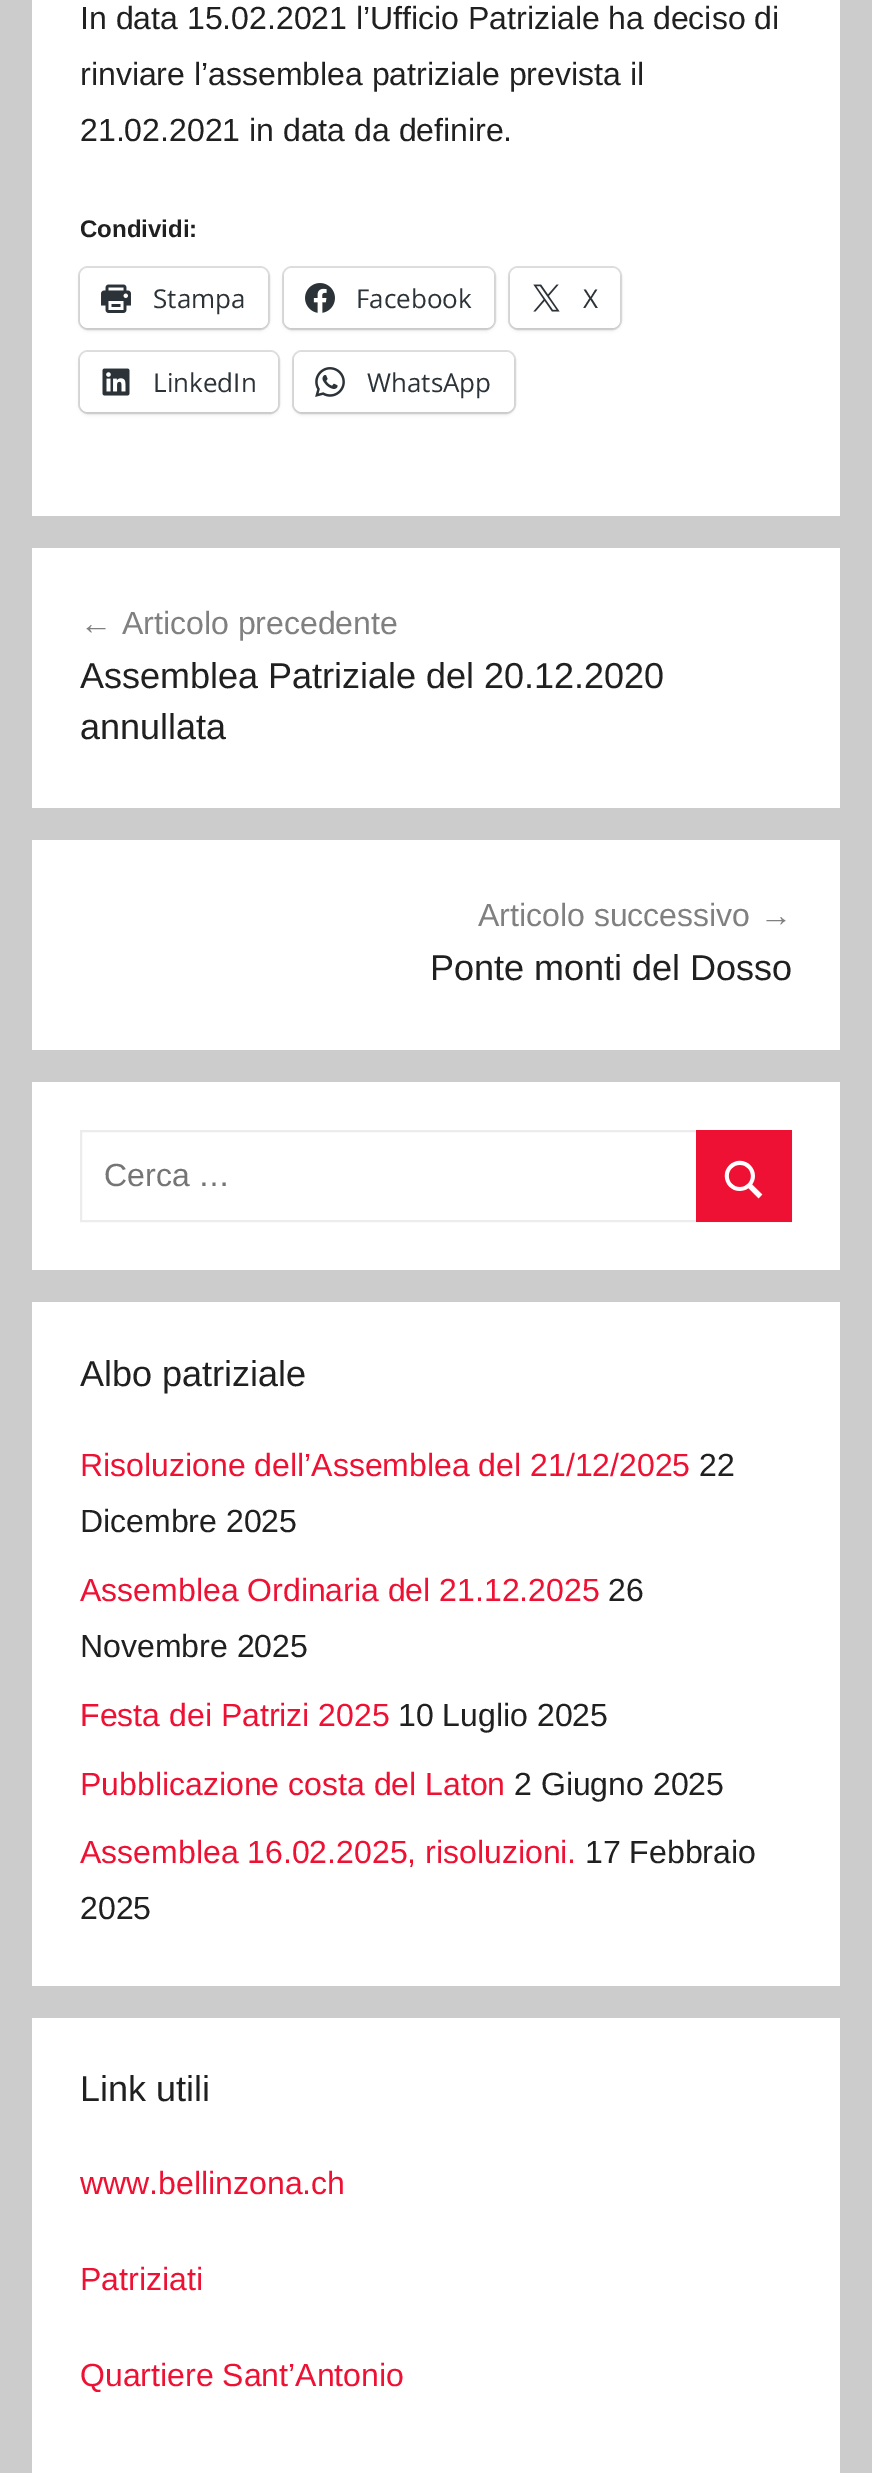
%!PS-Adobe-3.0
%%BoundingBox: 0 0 872 2473
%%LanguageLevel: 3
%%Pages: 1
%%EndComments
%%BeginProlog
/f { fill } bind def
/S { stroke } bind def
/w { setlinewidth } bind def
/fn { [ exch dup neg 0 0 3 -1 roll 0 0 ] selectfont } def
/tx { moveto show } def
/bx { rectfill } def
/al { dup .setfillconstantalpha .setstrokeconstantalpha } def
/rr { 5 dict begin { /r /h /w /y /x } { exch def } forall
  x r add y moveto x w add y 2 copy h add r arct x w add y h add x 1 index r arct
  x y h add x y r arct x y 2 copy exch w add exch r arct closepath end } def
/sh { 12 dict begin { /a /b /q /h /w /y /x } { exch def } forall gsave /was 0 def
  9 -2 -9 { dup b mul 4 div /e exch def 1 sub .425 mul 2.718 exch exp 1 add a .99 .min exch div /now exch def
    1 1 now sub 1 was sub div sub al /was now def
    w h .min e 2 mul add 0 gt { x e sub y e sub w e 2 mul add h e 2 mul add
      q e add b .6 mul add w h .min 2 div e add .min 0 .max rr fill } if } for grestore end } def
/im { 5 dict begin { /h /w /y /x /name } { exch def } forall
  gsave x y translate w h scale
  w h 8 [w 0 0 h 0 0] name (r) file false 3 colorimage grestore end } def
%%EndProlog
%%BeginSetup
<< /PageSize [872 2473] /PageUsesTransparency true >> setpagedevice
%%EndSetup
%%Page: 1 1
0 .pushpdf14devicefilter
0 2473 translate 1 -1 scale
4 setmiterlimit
0.8 setgray
0 0 872 2473 bx
1 setgray
32 0 808 516 bx
/LiberationSans-Regular 32 fn
0.125 setgray
(In data 15.02.2021 l’Ufficio Patriziale ha deciso di) 80 29 tx
(rinviare l’assemblea patriziale prevista il) 80 85 tx
(21.02.2021 in data da definire.) 80 141 tx
/LiberationSans-Bold 24 fn
(Condividi:) 80 237 tx
0.878 setgray
2 w
79 267 190 62 9 rr S
0 setgray
80 270 188 60 8 2 0.12 sh
1 setgray
80 268 188 60 8 rr f
(image0.raw) 101 284 30 29 im
/OpenSans-Regular 26 fn
0.173 0.2 0.22 setrgbcolor
(Stampa) 153 308 tx
0.878 setgray
283 267 212 62 9 rr S
0 setgray
284 270 210 60 8 2 0.12 sh
1 setgray
284 268 210 60 8 rr f
(image1.raw) 305 283 30 30 im
0.173 0.2 0.22 setrgbcolor
(Facebook) 356 308 tx
0.878 setgray
509 267 112 62 9 rr S
0 setgray
510 270 110 60 8 2 0.12 sh
1 setgray
510 268 110 60 8 rr f
(image2.raw) 533 284 27 28 im
0.173 0.2 0.22 setrgbcolor
(X) 583 308 tx
0.878 setgray
79 351 200 62 9 rr S
0 setgray
80 354 198 60 8 2 0.12 sh
1 setgray
80 352 198 60 8 rr f
(image3.raw) 102 368 28 28 im
0.173 0.2 0.22 setrgbcolor
(LinkedIn) 153 392 tx
0.878 setgray
293 351 222 62 9 rr S
0 setgray
294 354 220 60 8 2 0.12 sh
1 setgray
294 352 220 60 8 rr f
(image4.raw) 315 367 30 30 im
0.173 0.2 0.22 setrgbcolor
(WhatsApp) 367 392 tx
1 setgray
32 548 808 260 bx
/LiberationSans-Regular 32 fn
0.502 setgray
(←) 80 634 tx
(Articolo precedente) 122 634 tx
/LiberationSans-Regular 36 fn
0.125 setgray
(Assemblea Patriziale del 20.12.2020) 80 688 tx
(annullata) 80 739 tx
1 setgray
32 840 808 210 bx
/LiberationSans-Regular 32 fn
0.502 setgray
(Articolo successivo) 478 926 tx
(→) 760 926 tx
/LiberationSans-Regular 36 fn
0.125 setgray
(Ponte monti del Dosso) 430 980 tx
1 setgray
32 1082 808 188 bx
0.925 setgray
81 1131 710 90 rectstroke
/LiberationSans-Regular 32 fn
0.459 setgray
(Cerca …) 104 1186 tx
0.933 0.067 0.2 setrgbcolor
696 1130 96 92 bx
(image5.raw) 724 1160 39 39 im
1 setgray
32 1302 808 684 bx
/LiberationSans-Regular 36 fn
0.125 setgray
(Albo patriziale) 80 1386 tx
/LiberationSans-Regular 32 fn
0.933 0.067 0.2 setrgbcolor
(Risoluzione dell’Assemblea del 21/12/2025) 80 1476 tx
0.125 setgray
(22) 699 1476 tx
(Dicembre 2025) 80 1532 tx
0.933 0.067 0.2 setrgbcolor
(Assemblea Ordinaria del 21.12.2025) 80 1601 tx
0.125 setgray
(26) 608 1601 tx
(Novembre 2025) 80 1657 tx
0.933 0.067 0.2 setrgbcolor
(Festa dei Patrizi 2025) 80 1726 tx
0.125 setgray
(10 Luglio 2025) 398 1726 tx
0.933 0.067 0.2 setrgbcolor
(Pubblicazione costa del Laton) 80 1795 tx
0.125 setgray
(2 Giugno 2025) 514 1795 tx
0.933 0.067 0.2 setrgbcolor
(Assemblea 16.02.2025, risoluzioni.) 80 1863 tx
0.125 setgray
(17 Febbraio) 585 1863 tx
(2025) 80 1919 tx
1 setgray
32 2018 808 455 bx
/LiberationSans-Regular 36 fn
0.125 setgray
(Link utili) 80 2101 tx
/LiberationSans-Regular 32 fn
0.933 0.067 0.2 setrgbcolor
(www.bellinzona.ch) 80 2194 tx
(Patriziati) 80 2290 tx
(Quartiere Sant’Antonio) 80 2386 tx
.poppdf14devicefilter showpage
%%EOF
